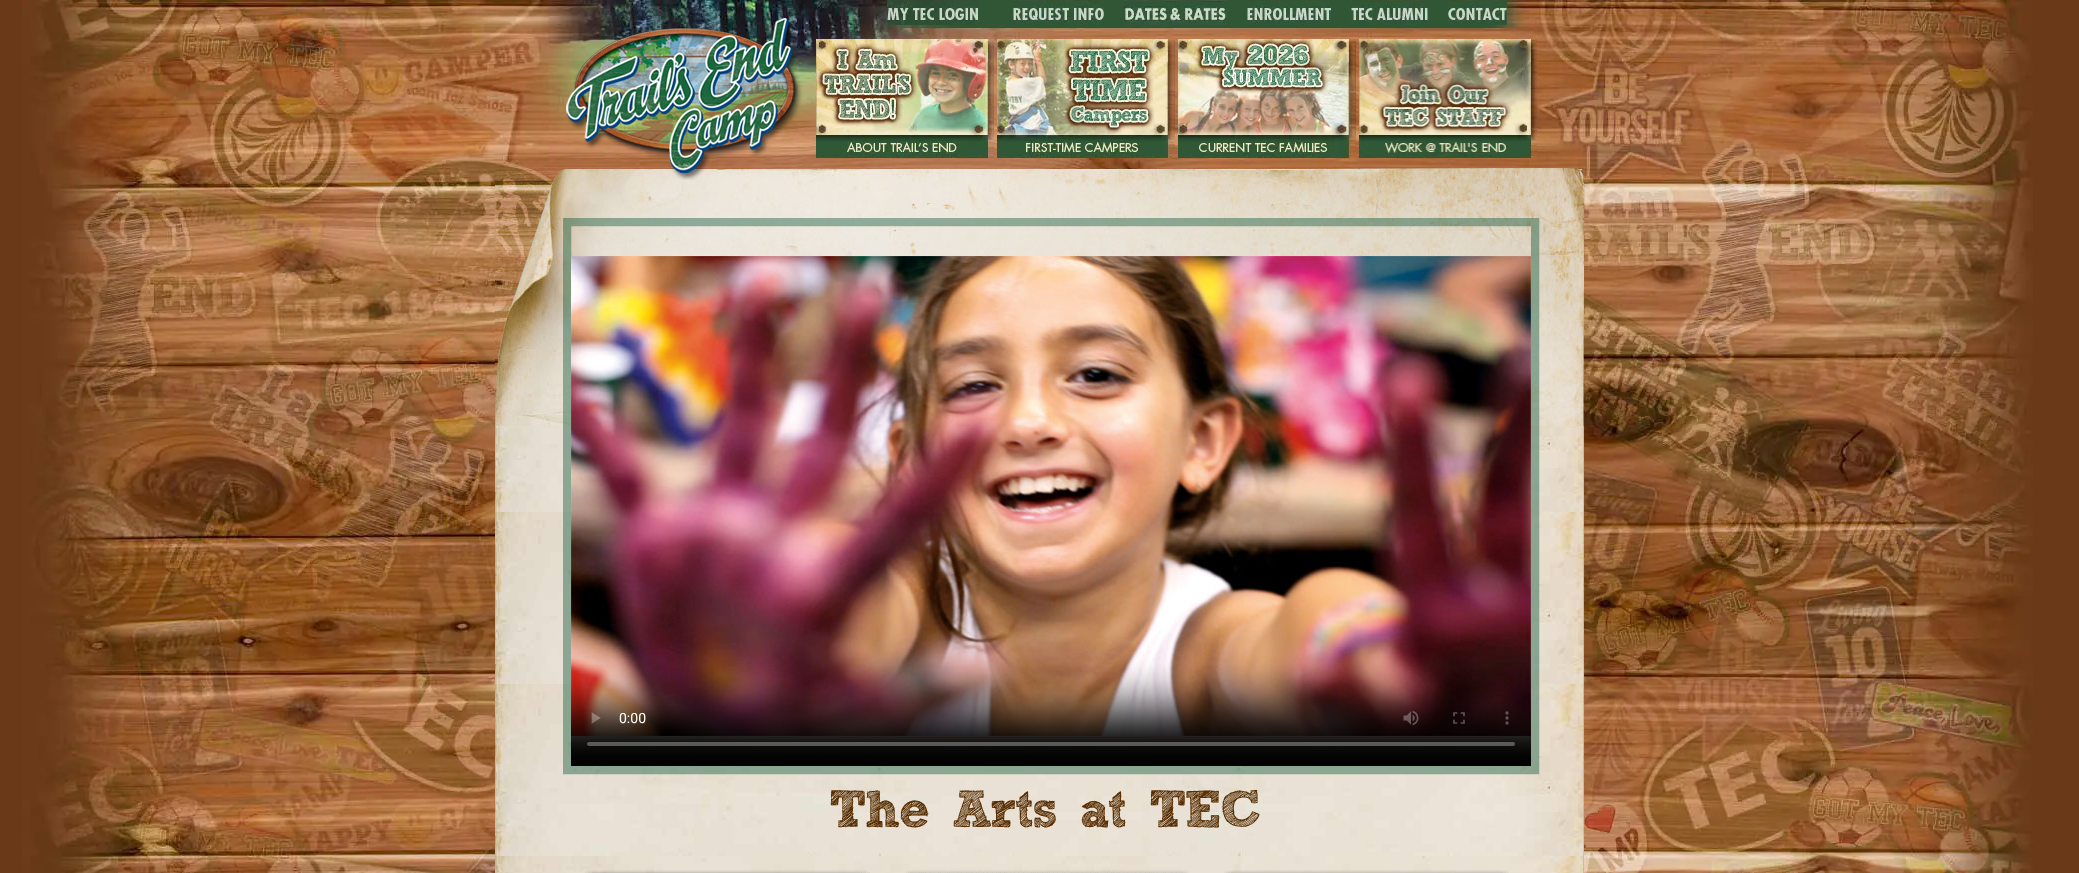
%!PS-Adobe-3.0
%%BoundingBox: 0 0 2079 873
%%LanguageLevel: 3
%%Pages: 1
%%EndComments
%%BeginProlog
/m { moveto } bind def
/w { setlinewidth } bind def
/fn { [ exch dup neg 0 0 3 -1 roll 0 0 ] selectfont } def
/bx { rectfill } def
/al { dup .setfillconstantalpha .setstrokeconstantalpha } def
/im { 5 dict begin { /h /w /y /x /name } { exch def } forall
  gsave x y translate w h scale
  w h 8 [w 0 0 h 0 0] name (r) file false 3 colorimage grestore end } def
%%EndProlog
%%BeginSetup
<< /PageSize [2079 873] /PageUsesTransparency true >> setpagedevice
%%EndSetup
%%Page: 1 1
0 .pushpdf14devicefilter
0 873 translate 1 -1 scale
4 setmiterlimit
0.416 0.227 0.094 setrgbcolor
0 0 2079 873 bx
(image0.raw) 22 0 2011 873 im
(image1.raw) 549 0 980 168 im
(image14.raw) 495 168 1089 258 im
(image2.raw) 566 18 237 162 im
(image3.raw) 887 0 91 25 im
(image4.raw) 1013 0 91 25 im
(image5.raw) 1124 0 103 25 im
(image6.raw) 1247 0 84 25 im
(image7.raw) 1351 0 77 25 im
(image8.raw) 1448 0 59 25 im
(image9.raw) 816 39 178 119 im
(image10.raw) 997 39 178 119 im
(image11.raw) 1178 39 178 119 im
(image12.raw) 1359 39 178 119 im
(image13.raw) 495 426 1089 447 im
0.4 al
0 0.306 0.184 setrgbcolor
8 w
567 222 968 548 rectstroke
1 al
(image15.raw) 571 256 960 510 im
/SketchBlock-Bold 52 fn
0.341 0.176 0.004 setrgbcolor
829 827 m -2 0 (The Arts at TEC) ashow
(image16.raw) 585 870 285 3 im
(image17.raw) 905 869 285 4 im
(image18.raw) 1224 870 285 3 im
.poppdf14devicefilter showpage
%%EOF
